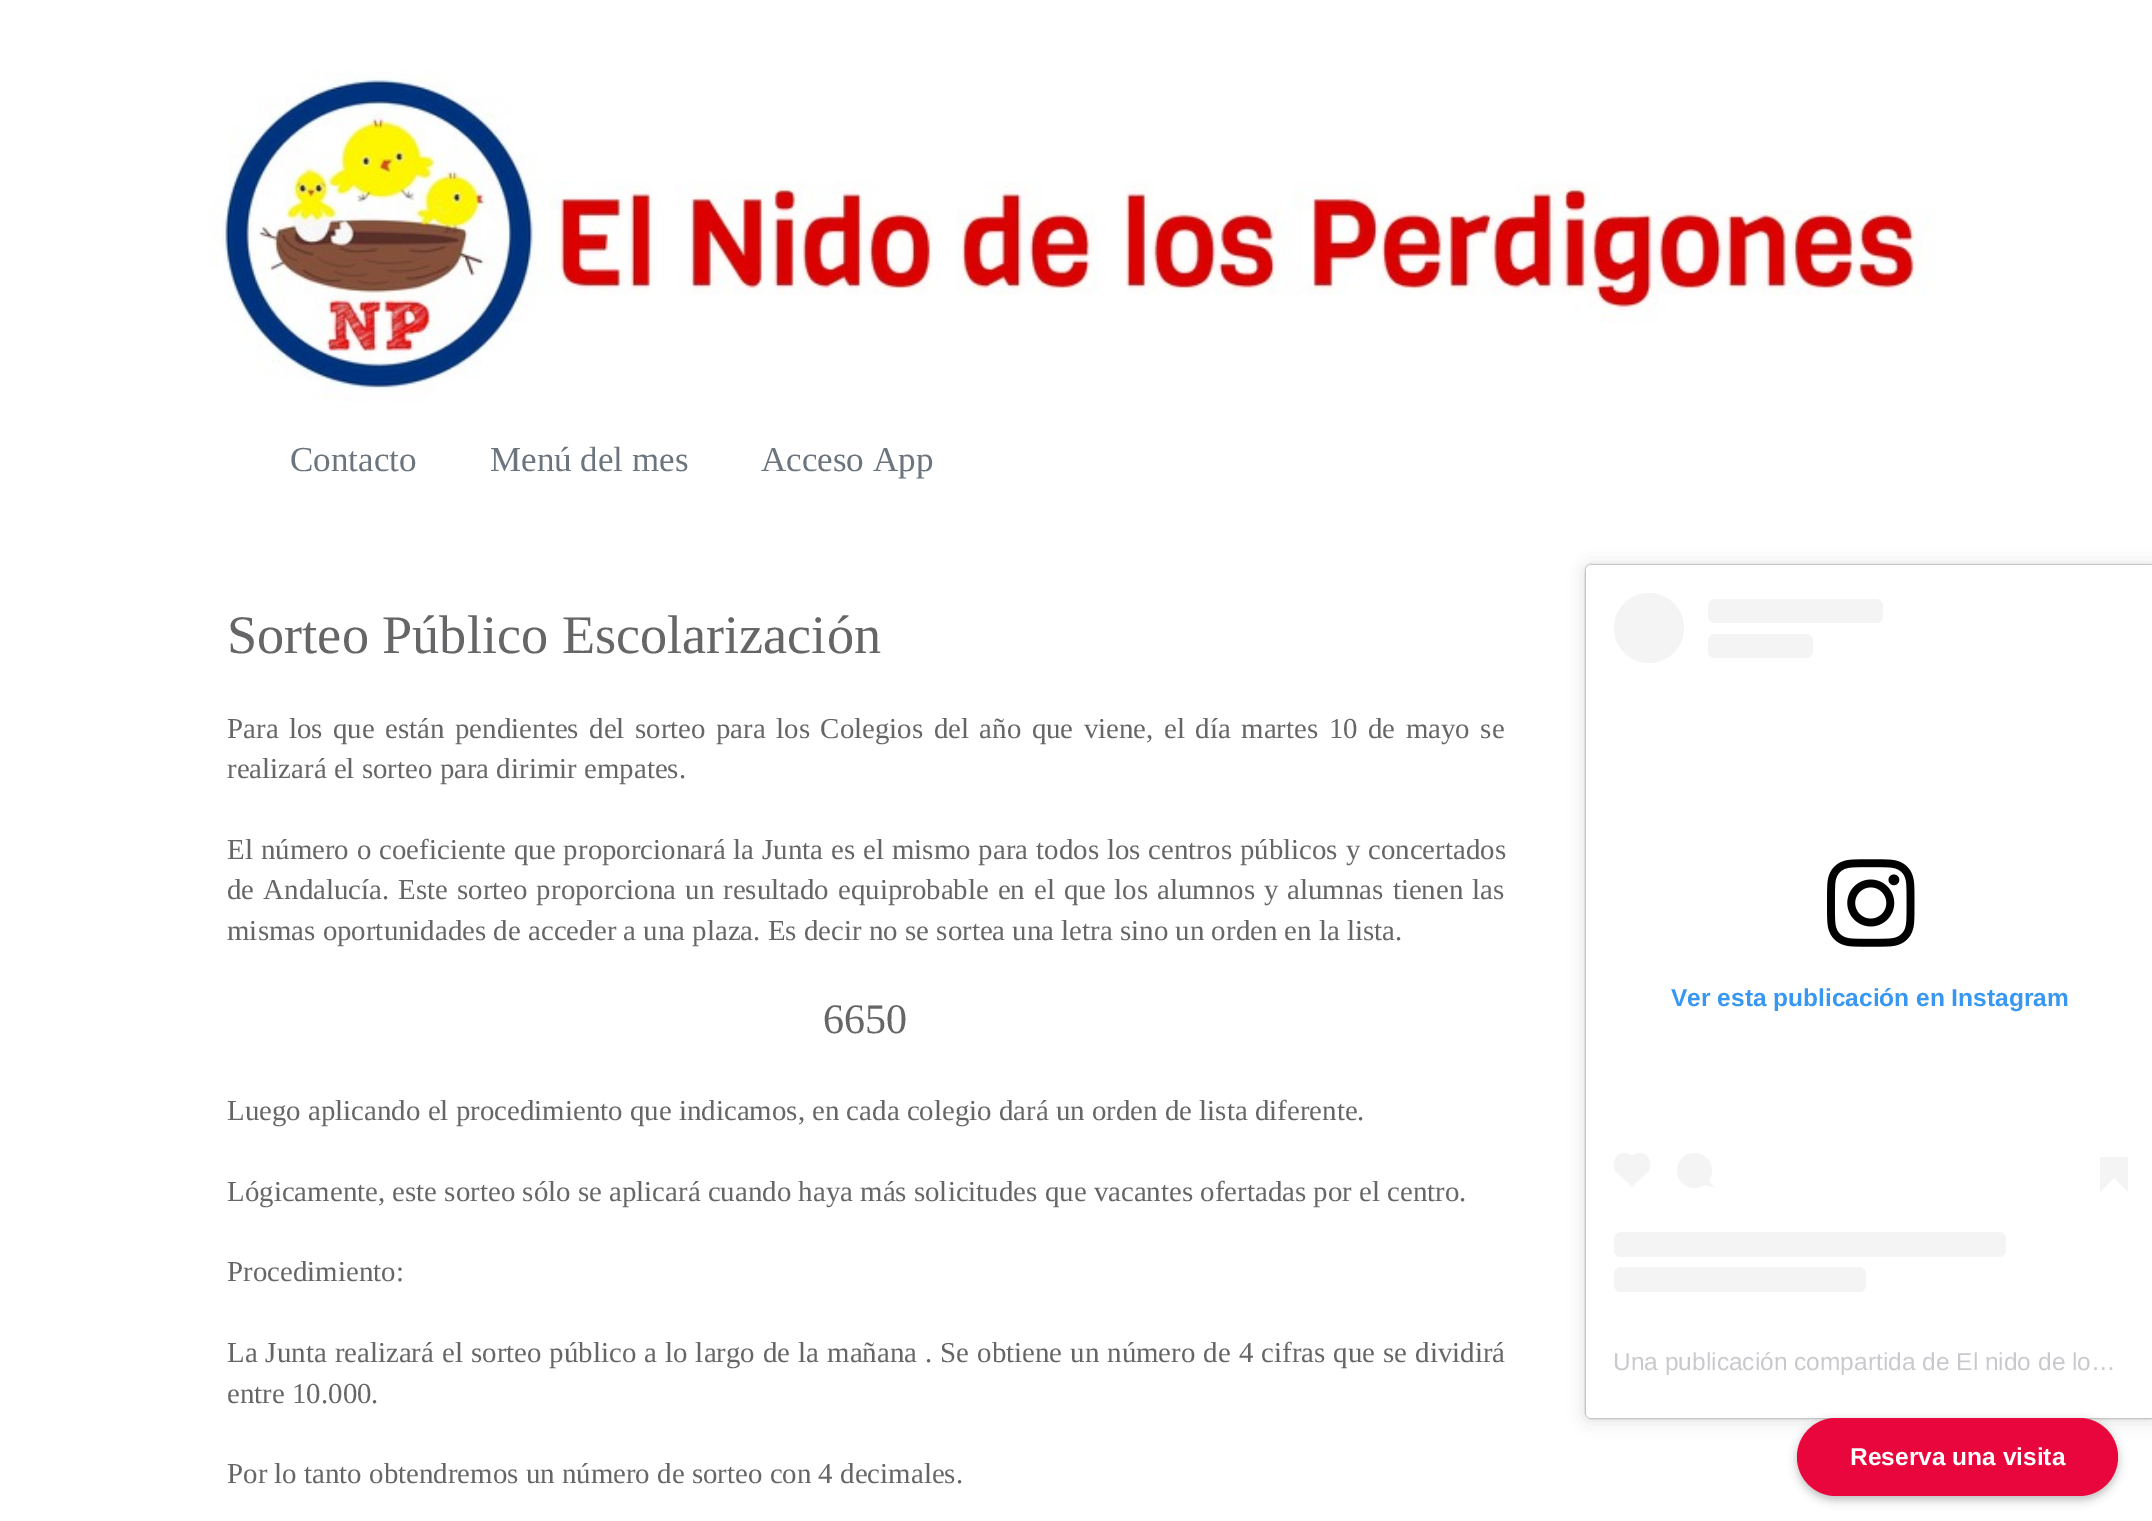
%!PS-Adobe-3.0
%%BoundingBox: 0 0 2152 1521
%%LanguageLevel: 3
%%Pages: 1
%%EndComments
%%BeginProlog
/m { moveto } bind def
/l { lineto } bind def
/h { closepath } bind def
/f { fill } bind def
/fn { [ exch dup neg 0 0 3 -1 roll 0 0 ] selectfont } def
/tx { moveto show } def
/bx { rectfill } def
/al { dup .setfillconstantalpha .setstrokeconstantalpha } def
/ci { newpath 0 360 arc closepath } def
/rr { 5 dict begin { /r /h /w /y /x } { exch def } forall
  x r add y moveto x w add y 2 copy h add r arct x w add y h add x 1 index r arct
  x y h add x y r arct x y 2 copy exch w add exch r arct closepath end } def
/sh { 12 dict begin { /a /b /q /h /w /y /x } { exch def } forall gsave /was 0 def
  9 -2 -9 { dup b mul 4 div /e exch def 1 sub .425 mul 2.718 exch exp 1 add a .99 .min exch div /now exch def
    1 1 now sub 1 was sub div sub al /was now def
    w h .min e 2 mul add 0 gt { x e sub y e sub w e 2 mul add h e 2 mul add
      q e add b .6 mul add w h .min 2 div e add .min 0 .max rr fill } if } for grestore end } def
/im { 5 dict begin { /h /w /y /x /name } { exch def } forall
  gsave x y translate w h scale
  w h 8 [w 0 0 h 0 0] name (r) file false 3 colorimage grestore end } def
%%EndProlog
%%BeginSetup
<< /PageSize [2152 1521] /PageUsesTransparency true >> setpagedevice
%%EndSetup
%%Page: 1 1
0 .pushpdf14devicefilter
0 1521 translate 1 -1 scale
4 setmiterlimit
1 setgray
0 0 2152 1521 bx
(image0.raw) 207 70 1730 332 im
/LiberationSerif-Regular 35 fn
0.424 0.459 0.49 setrgbcolor
(Contacto) 290 471 tx
(Menú del mes) 490 471 tx
(Acceso App) 761 471 tx
/LiberationSerif-Regular 54.25 fn
0.4 0.4 0.408 setrgbcolor
(Sorteo Público Escolarización) 227 653 tx
/LiberationSerif-Regular 28.9 fn
227 738 m 3.25 0 32 (Para los que están pendientes del sorteo para los Colegios del año que viene, el día martes 10 de mayo se) widthshow
(realizará el sorteo para dirimir empates.) 227 778 tx
227 859 m 0.7 0 32 (El número o coeficiente que proporcionará la Junta es el mismo para todos los centros públicos y concertados) widthshow
227 899 m 1.75 0 32 (de Andalucía. Este sorteo proporciona un resultado equiprobable en el que los alumnos y) widthshow
1287 899 m 2 0 32 (alumnas tienen las) widthshow
(mismas oportunidades de acceder a una plaza. Es decir no se sortea una letra sino un orden en la lista.) 227 940 tx
/LiberationSerif-Regular 42 fn
(6650) 823 1033 tx
/LiberationSerif-Regular 28.9 fn
(Luego aplicando el procedimiento que indicamos, en cada colegio dará un orden de lista diferente.) 227 1120 tx
(Lógicamente, este sorteo sólo se aplicará cuando haya más solicitudes que vacantes ofertadas por el centro.) 227 1201 tx
(Procedimiento:) 227 1281 tx
227 1362 m 0.8 0 32 (La Junta realizará el sorteo público a lo largo de la mañana . Se obtiene un número de 4 cifras que se dividirá) widthshow
(entre 10.000.) 227 1403 tx
(Por lo tanto obtendremos un número de sorteo con 4 decimales.) 227 1483 tx
0 setgray
1586 567 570 852 5 9 0.15 sh
1586 565 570 853 5 1 0.5 sh
1 setgray
1586 565 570 853 5 rr f
0.957 setgray
1649 628 35 ci f
1708 599 175 24 7 rr f
1708 634 105 24 7 rr f
(image1.raw) 1827 859 88 88 im
/LiberationSans-Bold 24.5 fn
0.22 0.592 0.941 setrgbcolor
(Ver esta publicación en Instagram) 1671 1006 tx
0.957 setgray
1614 1153 21 23 10.5 rr f
1616.5 1171.5 m 1632 1156.5 l 1647.5 1171.5 l 1632 1187 l h f
1629 1153 21 23 10.5 rr f
1694.5 1170.5 17.5 ci f
1703.5 1185 m 1707 1179 l 1714.5 1187.5 l h f
2100 1157 28 21 bx
2100 1178 m 2114 1178 l 2100 1192 l h f
2114 1178 m 2128 1178 l 2128 1192 l h f
1614 1232 392 25 7 rr f
1614 1267 252 25 7 rr f
/LiberationSans-Regular 24.5 fn
0.788 0.784 0.804 setrgbcolor
(Una publicación compartida de El nido de lo…) 1613 1370 tx
0 setgray
1797 1421 321 79 39.5 4.5 0.25 sh
0.91 0.024 0.235 setrgbcolor
1797 1418 321 78 39 rr f
/LiberationSans-Bold 24.5 fn
1 setgray
(Reserva una visita) 1850 1465 tx
.poppdf14devicefilter showpage
%%EOF
